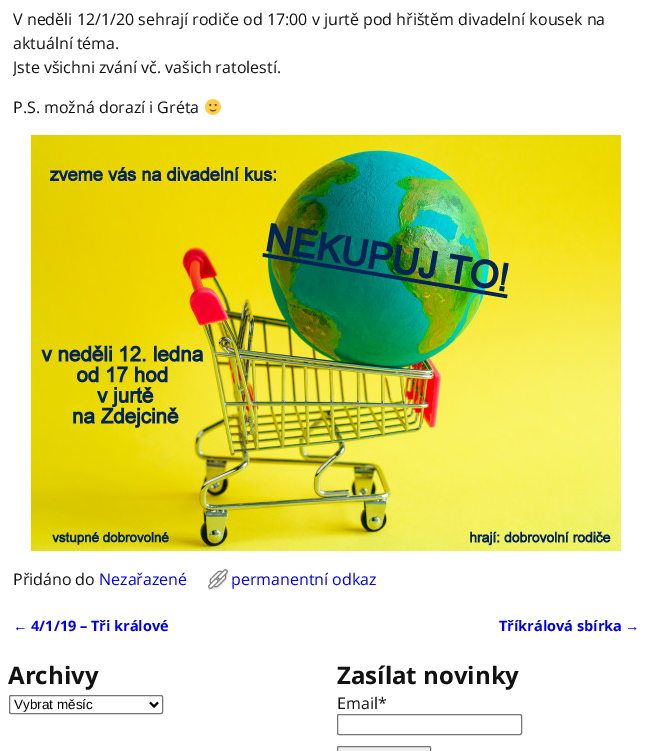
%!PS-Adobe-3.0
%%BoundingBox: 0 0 652 751
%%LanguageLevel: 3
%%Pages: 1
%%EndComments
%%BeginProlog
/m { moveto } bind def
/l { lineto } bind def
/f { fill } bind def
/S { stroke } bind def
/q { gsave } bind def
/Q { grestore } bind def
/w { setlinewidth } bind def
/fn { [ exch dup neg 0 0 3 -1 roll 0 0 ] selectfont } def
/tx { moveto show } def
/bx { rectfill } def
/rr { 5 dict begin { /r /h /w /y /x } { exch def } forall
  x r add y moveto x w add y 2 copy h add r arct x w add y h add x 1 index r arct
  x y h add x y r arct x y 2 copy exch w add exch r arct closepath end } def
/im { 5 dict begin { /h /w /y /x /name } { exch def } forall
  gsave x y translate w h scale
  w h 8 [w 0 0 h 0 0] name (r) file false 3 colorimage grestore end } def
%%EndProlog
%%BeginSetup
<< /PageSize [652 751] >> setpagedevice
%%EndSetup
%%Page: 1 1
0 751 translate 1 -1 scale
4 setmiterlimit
1 setgray
0 0 652 751 bx
/OpenSans-Regular 16 fn
0.071 setgray
(V neděli 12/1/20 sehrají rodiče od 17:00 v jurtě pod hřištěm divadelní kousek na) 13 25 tx
(aktuální téma.) 13 49 tx
q
13 0 626 591 rectclip
(Jste všichni zvání vč. vašich ratolestí.) 13 73 tx
Q
(P.S. možná dorazí i Gréta) 13 113 tx
(image0.raw) 205 99 16 16 im
(image1.raw) 31 135 590 416 im
(Přidáno do) 13 585 tx
0 0 0.933 setrgbcolor
(Nezařazené) 99 585 tx
(image2.raw) 208 569 21 21 im
(permanentní odkaz) 231 585 tx
/LiberationSans-Regular 14.5 fn
(←) 13 631 tx
/OpenSans-Bold 14.5 fn
(4/1/19 – Tři králové) 31 631 tx
(Tříkrálová sbírka) 499 631 tx
/LiberationSans-Regular 14.5 fn
(→) 625 631 tx
/OpenSans-Bold 24 fn
0.071 setgray
(Archivy) 8 684 tx
0.463 setgray
9.5 695.5 153 18 1.5 rr S
0 setgray
2 w
150 702.5 m 154 706.5 l 158 702.5 l S
/LiberationSans-Regular 13.5 fn
(Vybrat měsíc) 14 709 tx
/OpenSans-Bold 24 fn
0.071 setgray
(Zasílat novinky) 337 684 tx
/OpenSans-Regular 16 fn
(Email*) 337 709 tx
0.463 setgray
1 w
337.5 714.5 184 20 1.5 rr S
0.937 setgray
337.5 746.5 93 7 1.5 rr q f Q
0.463 setgray
S
showpage
%%EOF
